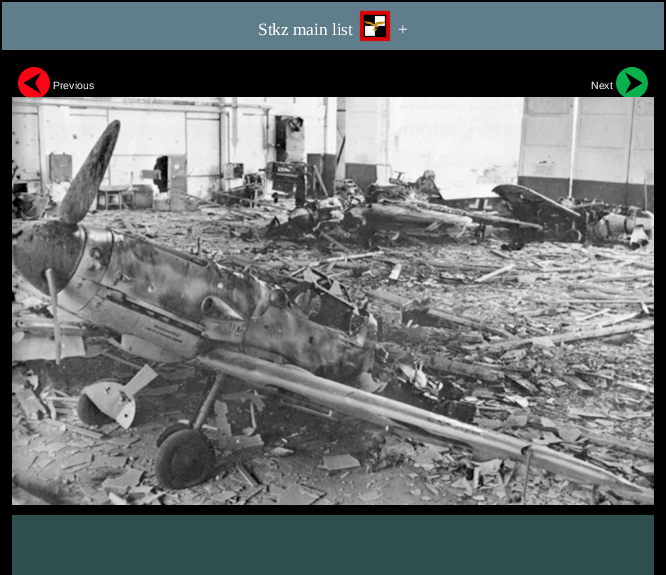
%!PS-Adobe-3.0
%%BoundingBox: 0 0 666 575
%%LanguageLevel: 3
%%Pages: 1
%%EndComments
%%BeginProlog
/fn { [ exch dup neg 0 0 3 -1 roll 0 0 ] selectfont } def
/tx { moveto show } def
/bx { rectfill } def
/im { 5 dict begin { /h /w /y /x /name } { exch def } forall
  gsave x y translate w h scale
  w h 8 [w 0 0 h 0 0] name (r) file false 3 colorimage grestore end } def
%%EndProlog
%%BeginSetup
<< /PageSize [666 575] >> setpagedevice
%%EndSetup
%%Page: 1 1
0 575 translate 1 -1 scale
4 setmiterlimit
0 setgray
0 0 666 575 bx
0.376 0.49 0.545 setrgbcolor
2 2 662 48 bx
/LiberationSerif-Regular 17.25 fn
1 setgray
(Stkz main list) 258 35 tx
(image0.raw) 359 10 32 32 im
(+) 398 35 tx
(image1.raw) 18 67 32 30 im
/LiberationSans-Regular 10.5 fn
(Previous) 53 89 tx
(Next) 591 89 tx
(image2.raw) 616 67 32 30 im
(image3.raw) 12 97 642 408 im
0.184 0.31 0.31 setrgbcolor
12 515 642 60 bx
showpage
%%EOF
